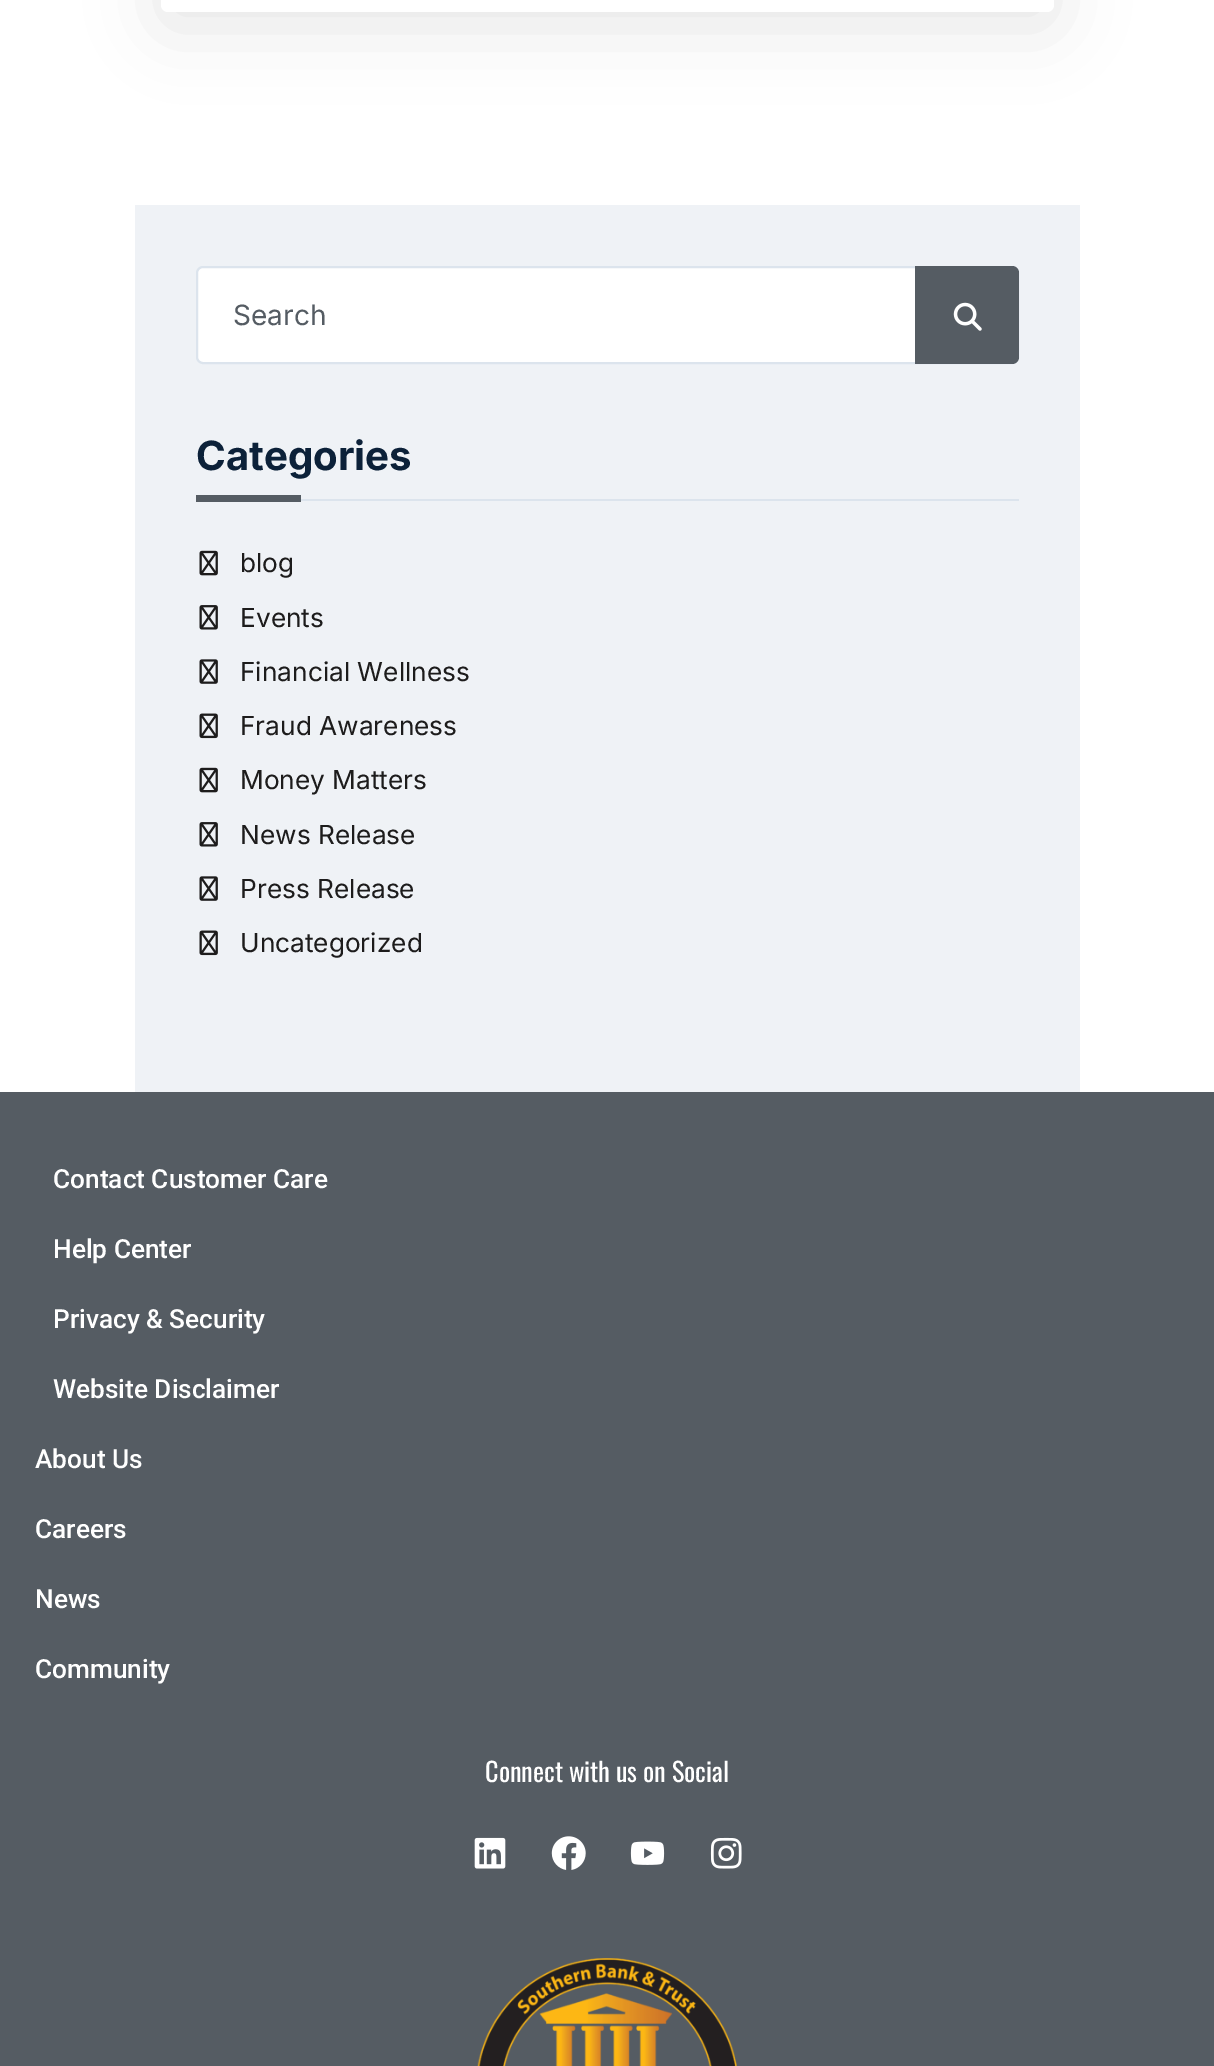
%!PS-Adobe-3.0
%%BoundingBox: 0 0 1214 2066
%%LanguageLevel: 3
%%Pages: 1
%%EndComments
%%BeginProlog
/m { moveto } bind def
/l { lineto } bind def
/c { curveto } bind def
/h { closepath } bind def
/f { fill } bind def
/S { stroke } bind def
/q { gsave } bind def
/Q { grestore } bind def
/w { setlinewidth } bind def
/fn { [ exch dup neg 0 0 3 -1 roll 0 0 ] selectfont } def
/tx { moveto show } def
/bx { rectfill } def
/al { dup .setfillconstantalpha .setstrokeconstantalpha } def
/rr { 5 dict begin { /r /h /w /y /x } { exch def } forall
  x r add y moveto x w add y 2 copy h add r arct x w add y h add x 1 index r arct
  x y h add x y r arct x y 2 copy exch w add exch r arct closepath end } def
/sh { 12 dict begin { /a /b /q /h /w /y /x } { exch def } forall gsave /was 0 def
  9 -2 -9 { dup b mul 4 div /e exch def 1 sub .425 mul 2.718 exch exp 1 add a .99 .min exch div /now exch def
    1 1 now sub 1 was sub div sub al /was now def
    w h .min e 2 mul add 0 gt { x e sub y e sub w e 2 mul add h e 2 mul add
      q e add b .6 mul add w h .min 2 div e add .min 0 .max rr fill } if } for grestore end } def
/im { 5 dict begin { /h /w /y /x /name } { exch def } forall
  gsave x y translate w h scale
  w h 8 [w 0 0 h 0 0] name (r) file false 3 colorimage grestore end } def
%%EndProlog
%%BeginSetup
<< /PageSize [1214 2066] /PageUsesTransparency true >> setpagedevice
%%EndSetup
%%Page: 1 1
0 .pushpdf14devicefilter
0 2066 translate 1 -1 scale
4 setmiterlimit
1 setgray
0 0 1214 2066 bx
0 setgray
161 -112 893 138 7 35 0.1 sh
1 setgray
161 -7 893 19 7 rr f
0.937 0.949 0.965 setrgbcolor
135 205 945 887 bx
1 setgray
197 267 821 96 6 rr q f Q
0.863 0.894 0.929 setrgbcolor
2 w
S
/Inter-Regular 28 fn
0.333 0.361 0.388 setrgbcolor
(Search) 233 325 tx
915 266 m 1012 266 l 1016 266 1019 269 1019 273 c 1019 357 l 1019 361 1016 364 1012 364 c 915 364 l h f
(image0.raw) 953 302 29 29 im
0.863 0.894 0.929 setrgbcolor
301 499 718 2 bx
/Inter-Bold 40.25 fn
0.047 0.129 0.224 setrgbcolor
(Categories) 196 470 tx
0.333 0.361 0.388 setrgbcolor
196 495 105 7 bx
(image1.raw) 199 550 19 26 im
/Inter-Regular 26.25 fn
0.114 0.11 0.11 setrgbcolor
(blog) 240 572 tx
(image2.raw) 199 605 19 25 im
(Events) 240 627 tx
(image3.raw) 199 659 19 25 im
(Financial Wellness) 240 681 tx
(image4.raw) 199 713 19 26 im
(Fraud Awareness) 240 735 tx
(image1.raw) 199 767 19 26 im
(Money Matters) 240 789 tx
(image2.raw) 199 822 19 25 im
(News Release) 240 844 tx
(image3.raw) 199 876 19 25 im
(Press Release) 240 898 tx
(image4.raw) 199 930 19 26 im
(Uncategorized) 240 952 tx
0.333 0.361 0.388 setrgbcolor
0 1092 1214 974 bx
/Roboto-Medium 26.25 fn
1 setgray
(Contact Customer Care) 53 1188 tx
(Help Center) 53 1258 tx
(Privacy & Security) 53 1328 tx
(Website Disclaimer) 53 1398 tx
(About Us) 35 1468 tx
(Careers) 35 1538 tx
(News) 35 1608 tx
(Community) 35 1678 tx
/Oswald-Regular 26.25 fn
(Connect with us on Social) 485 1782 tx
(image5.raw) 474 1837 32 32 im
(image6.raw) 551 1836 35 34 im
(image7.raw) 630 1841 35 24 im
(image8.raw) 710 1837 32 32 im
(image9.raw) 477 1958 260 108 im
.poppdf14devicefilter showpage
%%EOF
